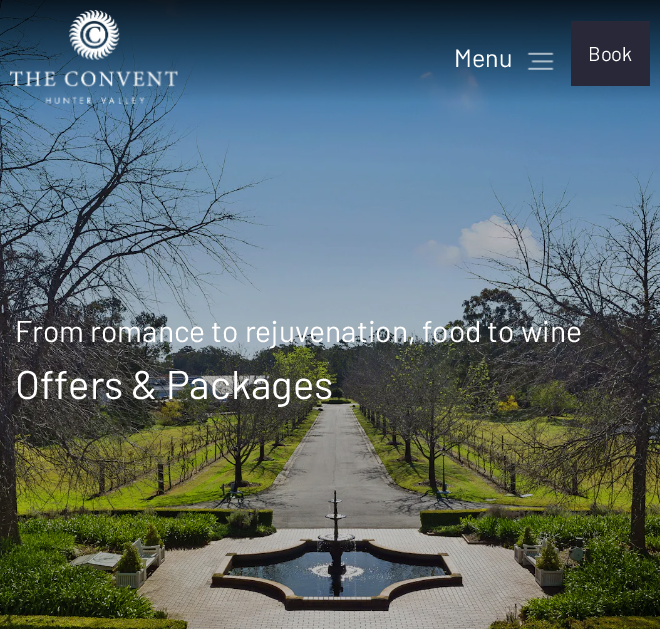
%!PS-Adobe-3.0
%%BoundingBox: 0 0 660 629
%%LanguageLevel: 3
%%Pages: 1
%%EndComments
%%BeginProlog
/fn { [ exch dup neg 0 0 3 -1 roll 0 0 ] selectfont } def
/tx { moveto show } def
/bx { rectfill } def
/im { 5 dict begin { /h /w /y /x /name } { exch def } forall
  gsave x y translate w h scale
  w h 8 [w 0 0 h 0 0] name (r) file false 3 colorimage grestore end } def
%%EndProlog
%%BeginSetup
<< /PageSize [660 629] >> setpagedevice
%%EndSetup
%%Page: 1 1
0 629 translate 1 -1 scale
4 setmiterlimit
1 setgray
0 0 660 629 bx
(image2.raw) 0 0 660 629 im
(image0.raw) 10 10 168 94 im
/Barlow-Regular 25 fn
(Menu) 454 67 tx
(image1.raw) 527 52 27 18 im
0.157 0.157 0.224 setrgbcolor
571 21 79 65 bx
/Barlow-Regular 20 fn
1 setgray
(Book) 588 61 tx
/Barlow-Regular 30 fn
(From romance to rejuvenation, food to wine) 15 342 tx
/Barlow-Regular 40 fn
(Offers & Packages) 15 399 tx
showpage
%%EOF
